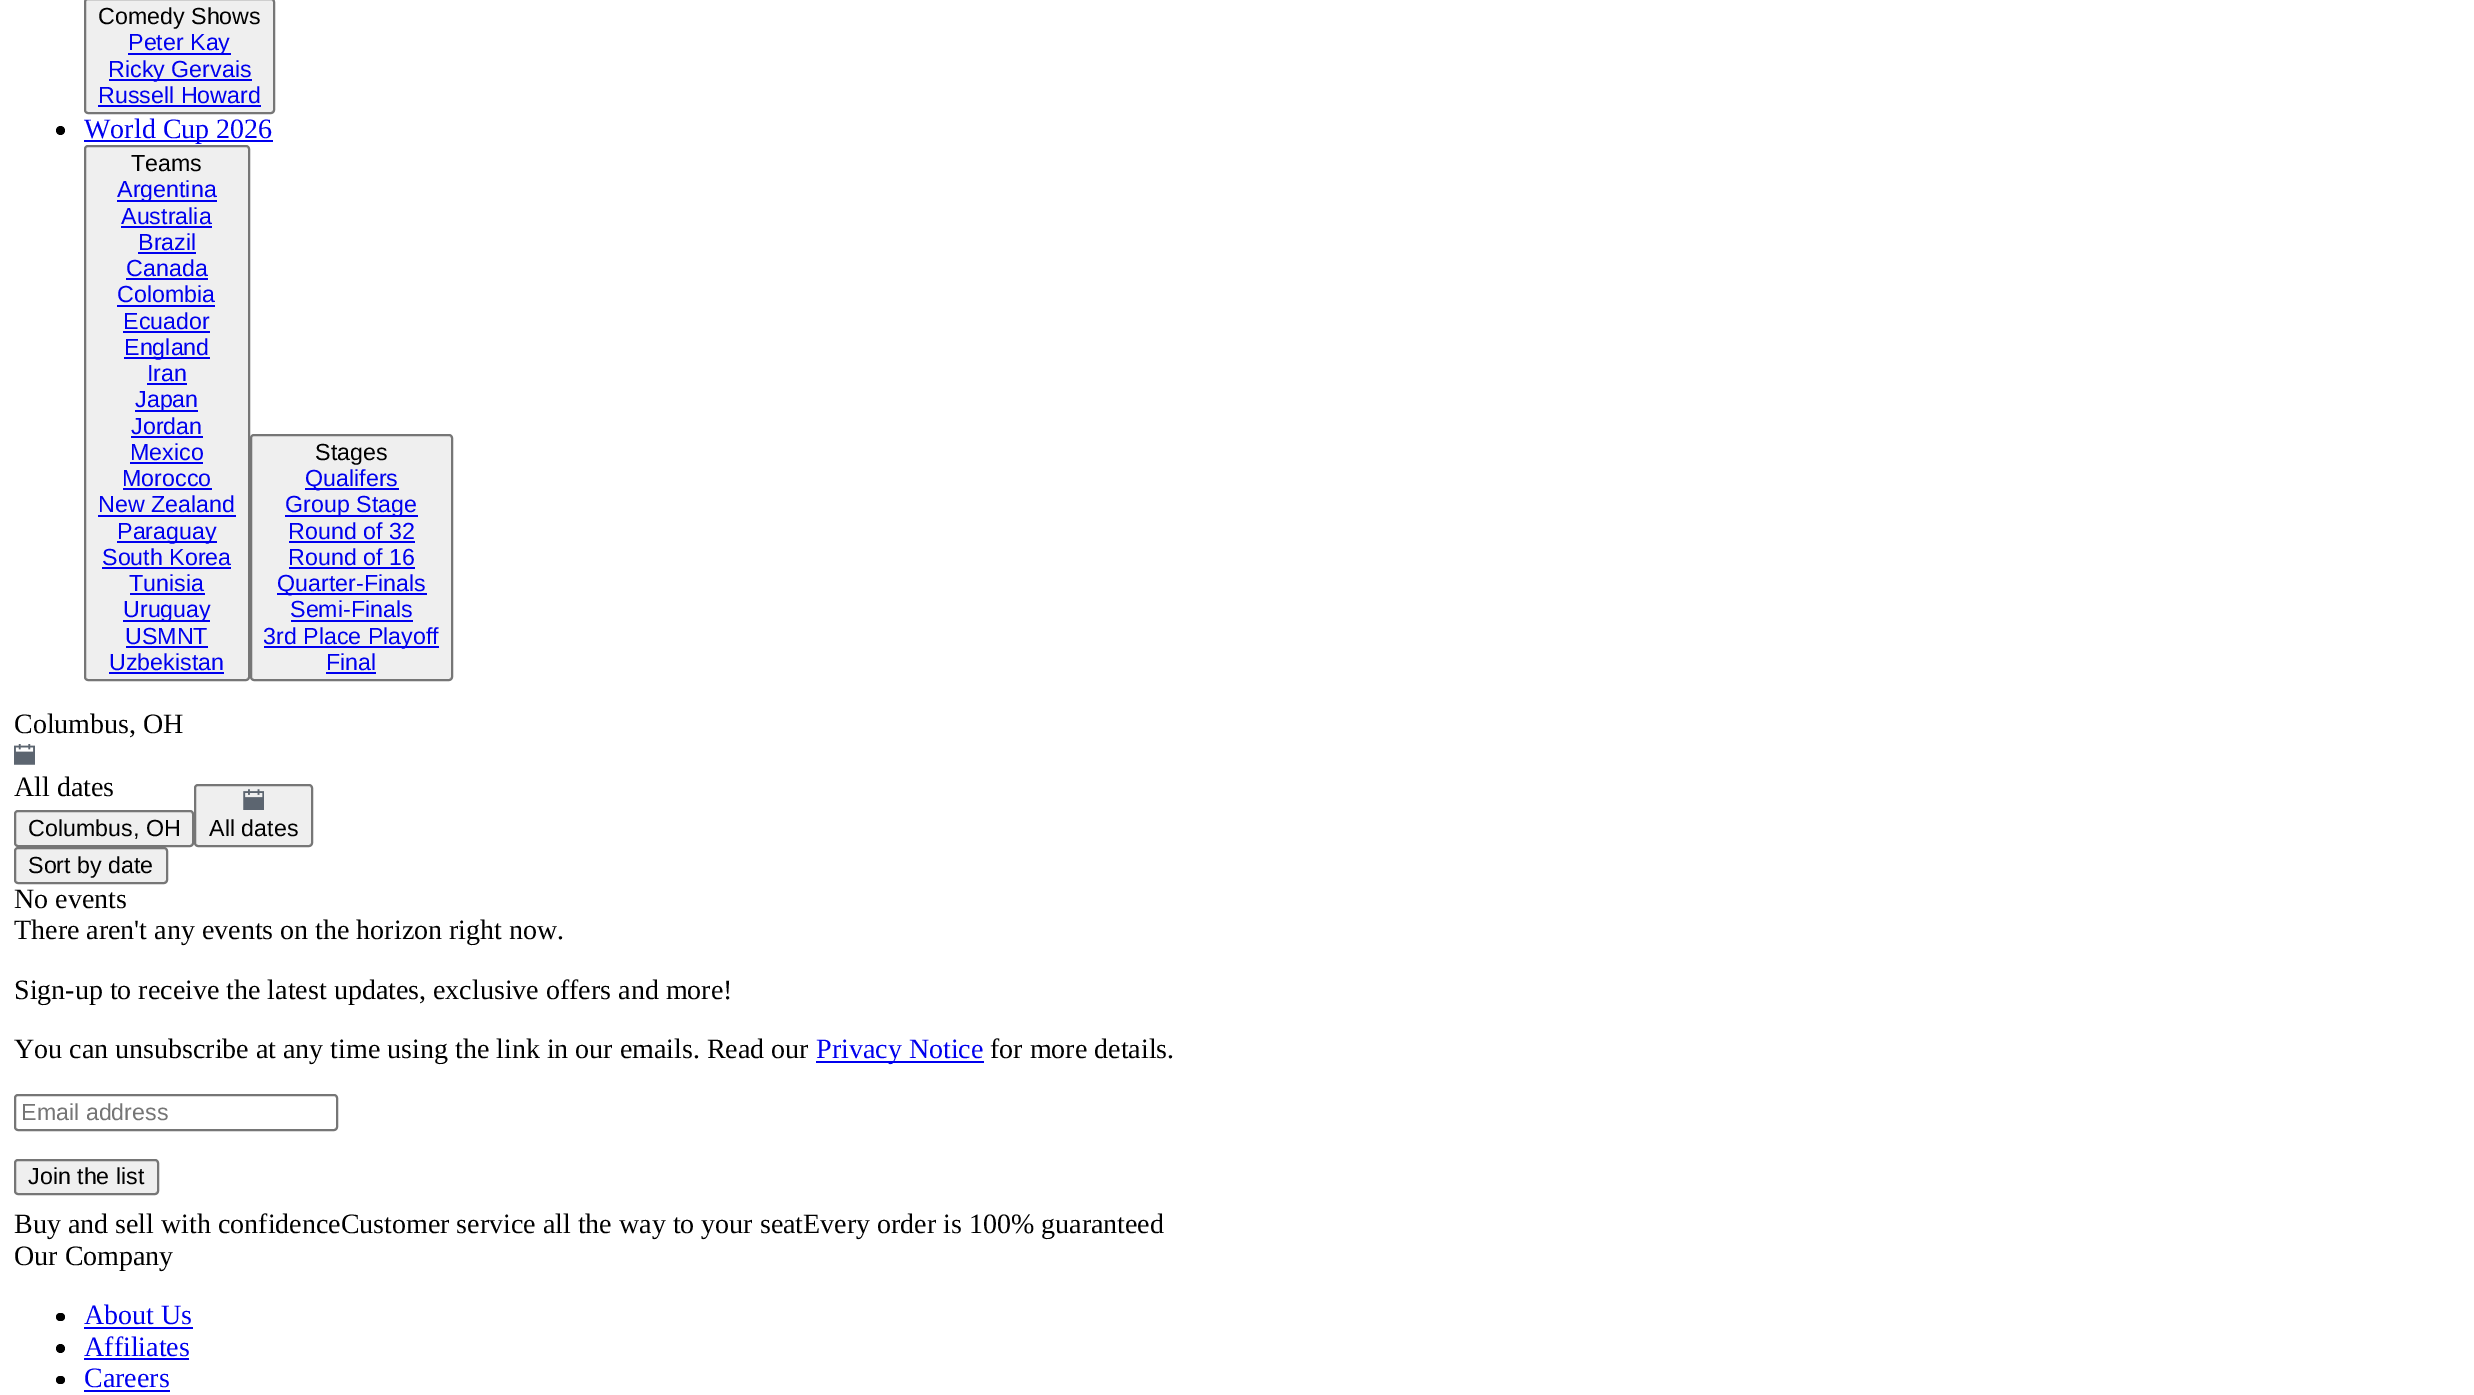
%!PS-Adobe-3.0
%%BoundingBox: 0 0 2474 1395
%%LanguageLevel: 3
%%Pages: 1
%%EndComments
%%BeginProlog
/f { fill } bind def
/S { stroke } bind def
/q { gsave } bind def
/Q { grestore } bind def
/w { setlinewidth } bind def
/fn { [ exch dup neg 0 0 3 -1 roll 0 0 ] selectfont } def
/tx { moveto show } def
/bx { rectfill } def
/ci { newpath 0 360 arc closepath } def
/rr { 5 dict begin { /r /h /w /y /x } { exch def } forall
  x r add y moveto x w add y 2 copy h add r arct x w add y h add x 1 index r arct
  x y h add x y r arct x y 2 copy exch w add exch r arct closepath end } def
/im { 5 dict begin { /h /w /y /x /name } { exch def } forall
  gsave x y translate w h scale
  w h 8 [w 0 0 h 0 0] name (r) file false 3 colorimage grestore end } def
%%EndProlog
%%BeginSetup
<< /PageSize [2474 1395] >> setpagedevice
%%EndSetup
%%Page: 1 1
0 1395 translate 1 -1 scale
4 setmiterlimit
1 setgray
0 0 2474 1395 bx
0.937 setgray
85 -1 189 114 3 rr q f Q
0.463 setgray
2 w
S
/LiberationSans-Regular 23.25 fn
0 setgray
(Comedy Shows) 98 24 tx
0 0 0.933 setrgbcolor
128 53 103 2 bx
(Peter Kay) 128 50 tx
109 79 143 2 bx
(Ricky Gervais) 108 77 tx
(Russell Howard) 98 103 tx
98 105 163 2 bx
0 setgray
60.5 130.5 4.5 ci f
0 0 0.933 setrgbcolor
84 140 189 2 bx
/LiberationSerif-Regular 28 fn
(World Cup 2026) 84 138 tx
0.937 setgray
85 146 164 534 3 rr q f Q
0.463 setgray
S
/LiberationSans-Regular 23.25 fn
0 setgray
(Teams) 131 171 tx
0 0 0.933 setrgbcolor
117 200 100 2 bx
(Argentina) 117 197 tx
(Australia) 121 224 tx
121 226 91 2 bx
(Brazil) 138 250 tx
138 252 58 2 bx
(Canada) 126 276 tx
126 278 82 2 bx
(Colombia) 117 302 tx
117 305 98 2 bx
(Ecuador) 123 329 tx
123 331 87 2 bx
124 357 86 2 bx
(England) 124 355 tx
(Iran) 147 381 tx
147 383 40 2 bx
135 410 63 2 bx
(Japan) 135 407 tx
(Jordan) 131 434 tx
131 436 72 2 bx
(Mexico) 130 460 tx
130 462 73 2 bx
(Morocco) 122 486 tx
123 488 89 2 bx
(New Zealand) 98 512 tx
98 515 138 2 bx
117 541 100 2 bx
(Paraguay) 117 539 tx
(South Korea) 102 565 tx
102 567 129 2 bx
(Tunisia) 129 591 tx
130 593 75 2 bx
123 620 87 2 bx
(Uruguay) 123 617 tx
(USMNT) 125 644 tx
126 646 82 2 bx
(Uzbekistan) 109 670 tx
109 672 115 2 bx
0.937 setgray
251 435 201 245 3 rr q f Q
0.463 setgray
S
0 setgray
(Stages) 315 460 tx
0 0 0.933 setrgbcolor
305 488 94 2 bx
(Qualifers) 305 486 tx
285 515 133 2 bx
(Group Stage) 285 512 tx
(Round of 32) 288 539 tx
289 541 126 2 bx
(Round of 16) 288 565 tx
289 567 126 2 bx
277 593 150 2 bx
(Quarter-Finals) 277 591 tx
(Semi-Finals) 290 617 tx
291 620 122 2 bx
264 646 175 2 bx
(3rd Place Playoff) 263 644 tx
(Final) 326 670 tx
326 672 50 2 bx
/LiberationSerif-Regular 28 fn
0 setgray
(Columbus, OH) 14 733 tx
(image0.raw) 14 744 21 21 im
(All dates) 14 796 tx
0.937 setgray
15 811 178 35 3 rr q f Q
0.463 setgray
S
/LiberationSans-Regular 23.25 fn
0 setgray
(Columbus, OH) 28 836 tx
0.937 setgray
195 785 117 61 3 rr q f Q
0.463 setgray
S
(image1.raw) 243 789 21 21 im
0 setgray
(All dates) 209 836 tx
0.937 setgray
15 848 152 35 3 rr q f Q
0.463 setgray
S
0 setgray
(Sort by date) 28 873 tx
/LiberationSerif-Regular 28 fn
(No events) 14 908 tx
(There aren't any events on the horizon right now.) 14 939 tx
(Sign-up to receive the latest updates, exclusive offers and more!) 14 999 tx
(You can unsubscribe at any time using the link in our emails. Read our) 14 1058 tx
0 0 0.933 setrgbcolor
816 1061 168 2 bx
(Privacy Notice) 816 1058 tx
0 setgray
(for more details.) 990 1058 tx
0.463 setgray
15 1095 322 35 3 rr S
/LiberationSans-Regular 23.25 fn
0.459 setgray
(Email address) 21 1120 tx
0.937 setgray
15 1160 143 34 3 rr q f Q
0.463 setgray
S
0 setgray
(Join the list) 28 1184 tx
/LiberationSerif-Regular 28 fn
(Buy and sell with confidenceCustomer service all the way to your seatEvery order is 100% guaranteed) 14 1233 tx
(Our Company) 14 1265 tx
56 1313 9 8 4 rr f
0 0 0.933 setrgbcolor
(About Us) 84 1324 tx
84 1327 109 2 bx
0 setgray
60.5 1348.5 4.5 ci f
0 0 0.933 setrgbcolor
(Affiliates) 84 1356 tx
84 1358 105 2 bx
0 setgray
56 1376 9 8 4 rr f
0 0 0.933 setrgbcolor
(Careers) 84 1387 tx
84 1390 86 2 bx
showpage
%%EOF
